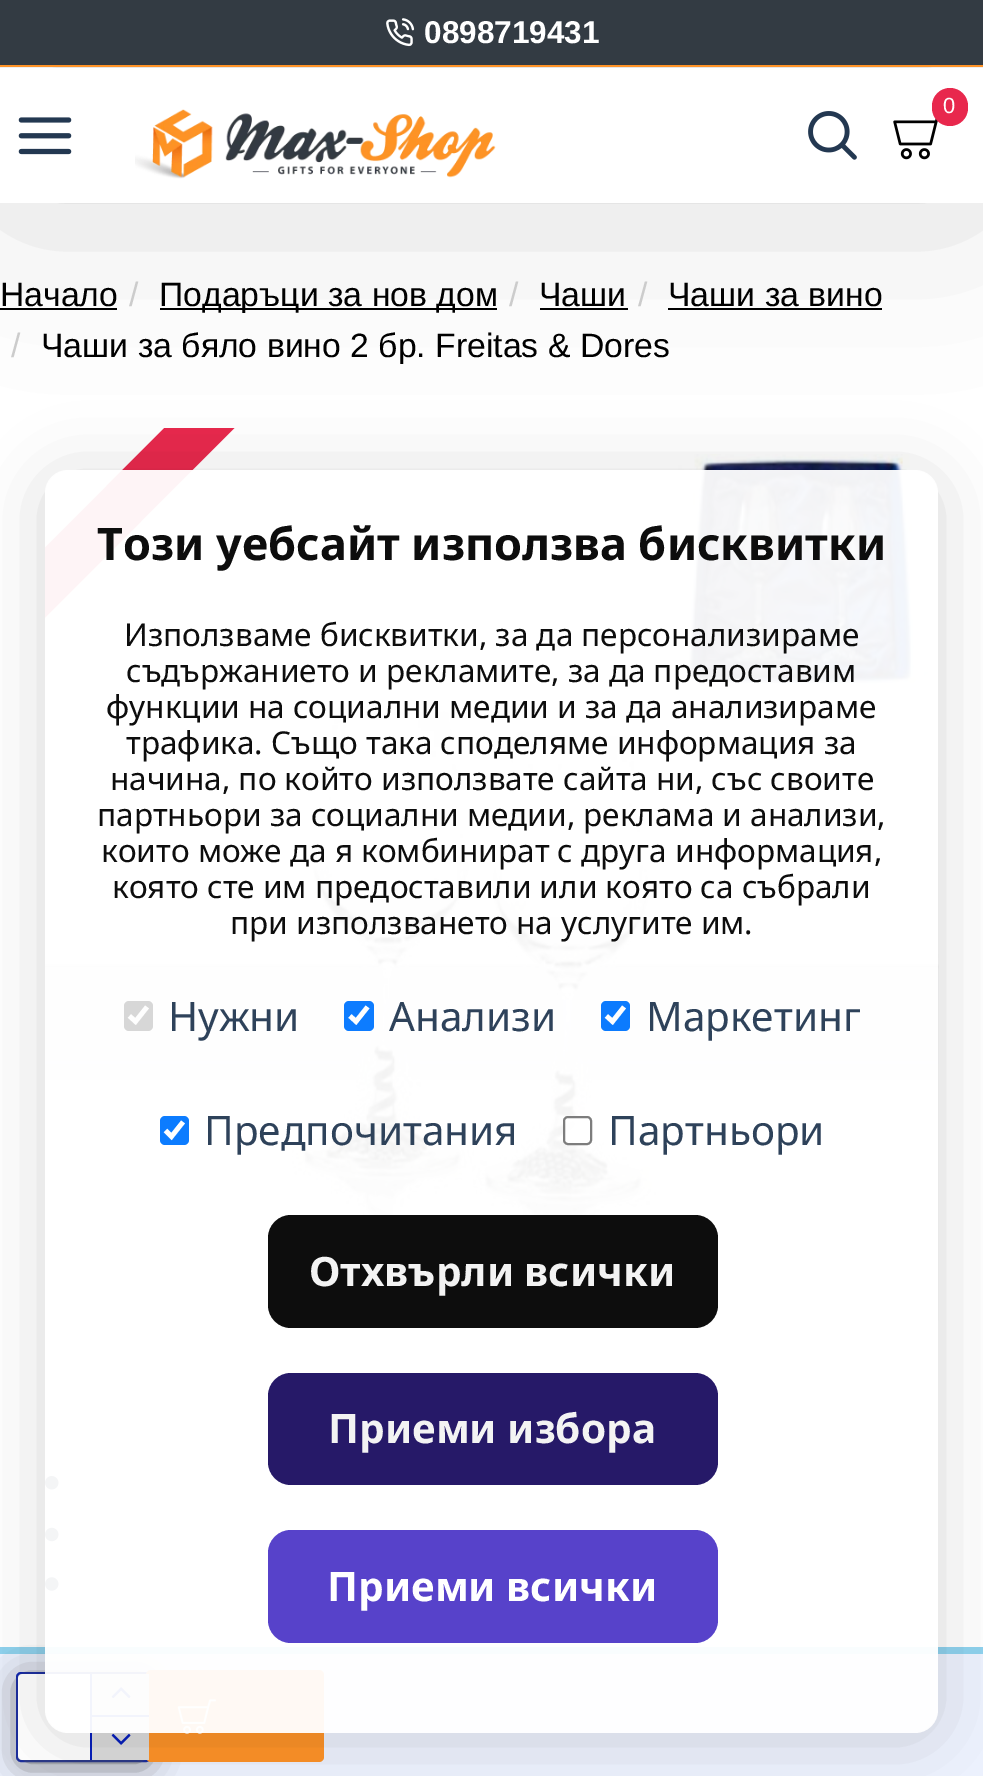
%!PS-Adobe-3.0
%%BoundingBox: 0 0 983 1776
%%LanguageLevel: 3
%%Pages: 1
%%EndComments
%%BeginProlog
/m { moveto } bind def
/l { lineto } bind def
/c { curveto } bind def
/h { closepath } bind def
/f { fill } bind def
/S { stroke } bind def
/q { gsave } bind def
/Q { grestore } bind def
/w { setlinewidth } bind def
/fn { [ exch dup neg 0 0 3 -1 roll 0 0 ] selectfont } def
/tx { moveto show } def
/bx { rectfill } def
/al { dup .setfillconstantalpha .setstrokeconstantalpha } def
/rr { 5 dict begin { /r /h /w /y /x } { exch def } forall
  x r add y moveto x w add y 2 copy h add r arct x w add y h add x 1 index r arct
  x y h add x y r arct x y 2 copy exch w add exch r arct closepath end } def
/sh { 12 dict begin { /a /b /q /h /w /y /x } { exch def } forall gsave /was 0 def
  9 -2 -9 { dup b mul 4 div /e exch def 1 sub .425 mul 2.718 exch exp 1 add a .99 .min exch div /now exch def
    1 1 now sub 1 was sub div sub al /was now def
    w h .min e 2 mul add 0 gt { x e sub y e sub w e 2 mul add h e 2 mul add
      q e add b .6 mul add w h .min 2 div e add .min 0 .max rr fill } if } for grestore end } def
/im { 5 dict begin { /h /w /y /x /name } { exch def } forall
  gsave x y translate w h scale
  w h 8 [w 0 0 h 0 0] name (r) file false 3 colorimage grestore end } def
%%EndProlog
%%BeginSetup
<< /PageSize [983 1776] /PageUsesTransparency true >> setpagedevice
%%EndSetup
%%Page: 1 1
0 .pushpdf14devicefilter
0 1776 translate 1 -1 scale
4 setmiterlimit
1 setgray
0 0 983 1776 bx
0 setgray
0 308 117 2 bx
160 308 337 2 bx
540 308 88 2 bx
668 308 214 2 bx
(image5.raw) 45 454 894 867 im
q
45 428 893 893 rectclip
0.91 0.157 0.302 setrgbcolor
-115 708 m 327 265 l 337 256 353 256 362 265 c 372 275 372 291 362 300 c -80 743 l -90 752 -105 752 -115 743 c -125 733 -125 717 -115 708 c h f
Q
23 90 938 90 0 95.5 0.2 sh
0.2 0.231 0.263 setrgbcolor
0 0 983 65 bx
1 0.576 0.153 setrgbcolor
0 65 983 2 bx
(image0.raw) 386 18 29 29 im
/LiberationSans-Bold 31.5 fn
1 setgray
(0898719431) 424 43 tx
0 68 983 135 bx
(image1.raw) 893 118 45 42 im
0.91 0.157 0.302 setrgbcolor
932 88 36 38 18 rr f
/LiberationSans-Regular 22 fn
1 setgray
(0) 943 113 tx
(image2.raw) 18 117 54 38 im
(image3.raw) 808 111 49 49 im
(image4.raw) 135 109 361 70 im
/LiberationSans-Regular 33.75 fn
0 setgray
(Начало) 0 306 tx
0.8 setgray
(/) 129 306 tx
0 setgray
(Подаръци за нов дом) 159 306 tx
0.8 setgray
(/) 509 306 tx
0 setgray
(Чаши) 539 306 tx
0.8 setgray
(/) 638 306 tx
0 setgray
(Чаши за вино) 668 306 tx
0.8 setgray
(/) 11 357 tx
0 setgray
(Чаши за бяло вино 2 бр. Freitas & Dores) 41 357 tx
(image6.raw) 45 1476 14 14 im
(image7.raw) 45 1527 14 15 im
(image8.raw) 45 1577 14 14 im
0.929 0.949 0.996 setrgbcolor
0 1654 983 122 bx
0.561 0.824 0.933 setrgbcolor
0 1647 983 7 bx
0.024 0.118 0.733 setrgbcolor
2 w
17 1673 133 88 4 rr S
0.333 setgray
23 1683 121 77 0 17 1 sh
1 setgray
18 1674 131 86 5 rr f
0.024 0.118 0.733 setrgbcolor
90 1674 2 86 bx
1 0.576 0.153 setrgbcolor
146 1670 178 92 5 rr f
0.867 setgray
92 1674 57 41 bx
0.024 0.118 0.733 setrgbcolor
92 1715 57 2 bx
(image9.raw) 111 1687 20 12 im
0.867 setgray
92 1717 57 43 bx
(image10.raw) 111 1733 20 12 im
(image11.raw) 177 1699 39 35 im
q
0 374 m 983 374 l 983 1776 l 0 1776 l h 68 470 m 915 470 l 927.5 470 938 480.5 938 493 c 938 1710 l 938 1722.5 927.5 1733 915 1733 c 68 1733 l 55.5 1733 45 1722.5 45 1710 c 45 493 l 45 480.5 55.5 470 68 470 c h eoclip newpath
0 setgray
45 477 893 1262 23 34 0.15 sh
Q
0.95 al
1 setgray
45 470 893 1263 23 rr f
/NotoSans-Bold 45 fn
1 al
0.051 setgray
(Този уебсайт използва бисквитки) 97 560 tx
/NotoSans-Regular 31.5 fn
(Използваме бисквитки, за да персонализираме) 124 646 tx
(съдържанието и рекламите, за да предоставим) 126 682 tx
(функции на социални медии и за да анализираме) 106 718 tx
(трафика. Също така споделяме информация за) 126 754 tx
(начина, по който използвате сайта ни, със своите) 110 790 tx
(партньори за социални медии, реклама и анализи,) 97 826 tx
(които може да я комбинират с друга информация,) 101 862 tx
(която сте им предоставили или която са събрали) 112 898 tx
(при използването на услугите им.) 230 934 tx
0.843 setgray
124 1001 29 30 5 rr f
0.996 setgray
4.7 w
129.5 1016 m 135.5 1021.5 l 147 1007 l S
/NotoSans-Regular 40.5 fn
0.18 0.259 0.353 setrgbcolor
(Нужни) 168 1031 tx
0.051 0.486 1 setrgbcolor
344 1001 30 30 5 rr f
0.996 setgray
350 1016 m 356 1021.5 l 367.5 1007 l S
0.18 0.259 0.353 setrgbcolor
(Анализи) 389 1031 tx
0.047 0.482 0.996 setrgbcolor
601 1001 29 30 5 rr f
0.996 setgray
606.5 1016 m 612.5 1021.5 l 624 1007 l S
0.18 0.259 0.353 setrgbcolor
(Маркетинг) 646 1031 tx
0.047 0.486 1 setrgbcolor
160 1116 29 29 5 rr f
1 setgray
165.5 1130.5 m 171.5 1136.5 l 183 1122 l S
0.18 0.259 0.353 setrgbcolor
(Предпочитания) 204 1145 tx
0.95 al
1 setgray
563 1116 29 29 5 rr f
0.463 setgray
2 w
564 1117 27 27 4 rr S
1 al
0.18 0.259 0.353 setrgbcolor
(Партньори) 608 1145 tx
0.95 al
0 setgray
268 1215 450 113 23 rr f
/NotoSans-Bold 40.5 fn
1 al
0.953 setgray
(Отхвърли всички) 309 1286 tx
0.95 al
0.102 0.051 0.376 setrgbcolor
268 1373 450 112 23 rr f
1 al
0.953 setgray
(Приеми избора) 328 1443 tx
0.95 al
0.306 0.22 0.78 setrgbcolor
268 1530 450 113 23 rr f
1 al
1 setgray
(Приеми всички) 327 1601 tx
.poppdf14devicefilter showpage
%%EOF
